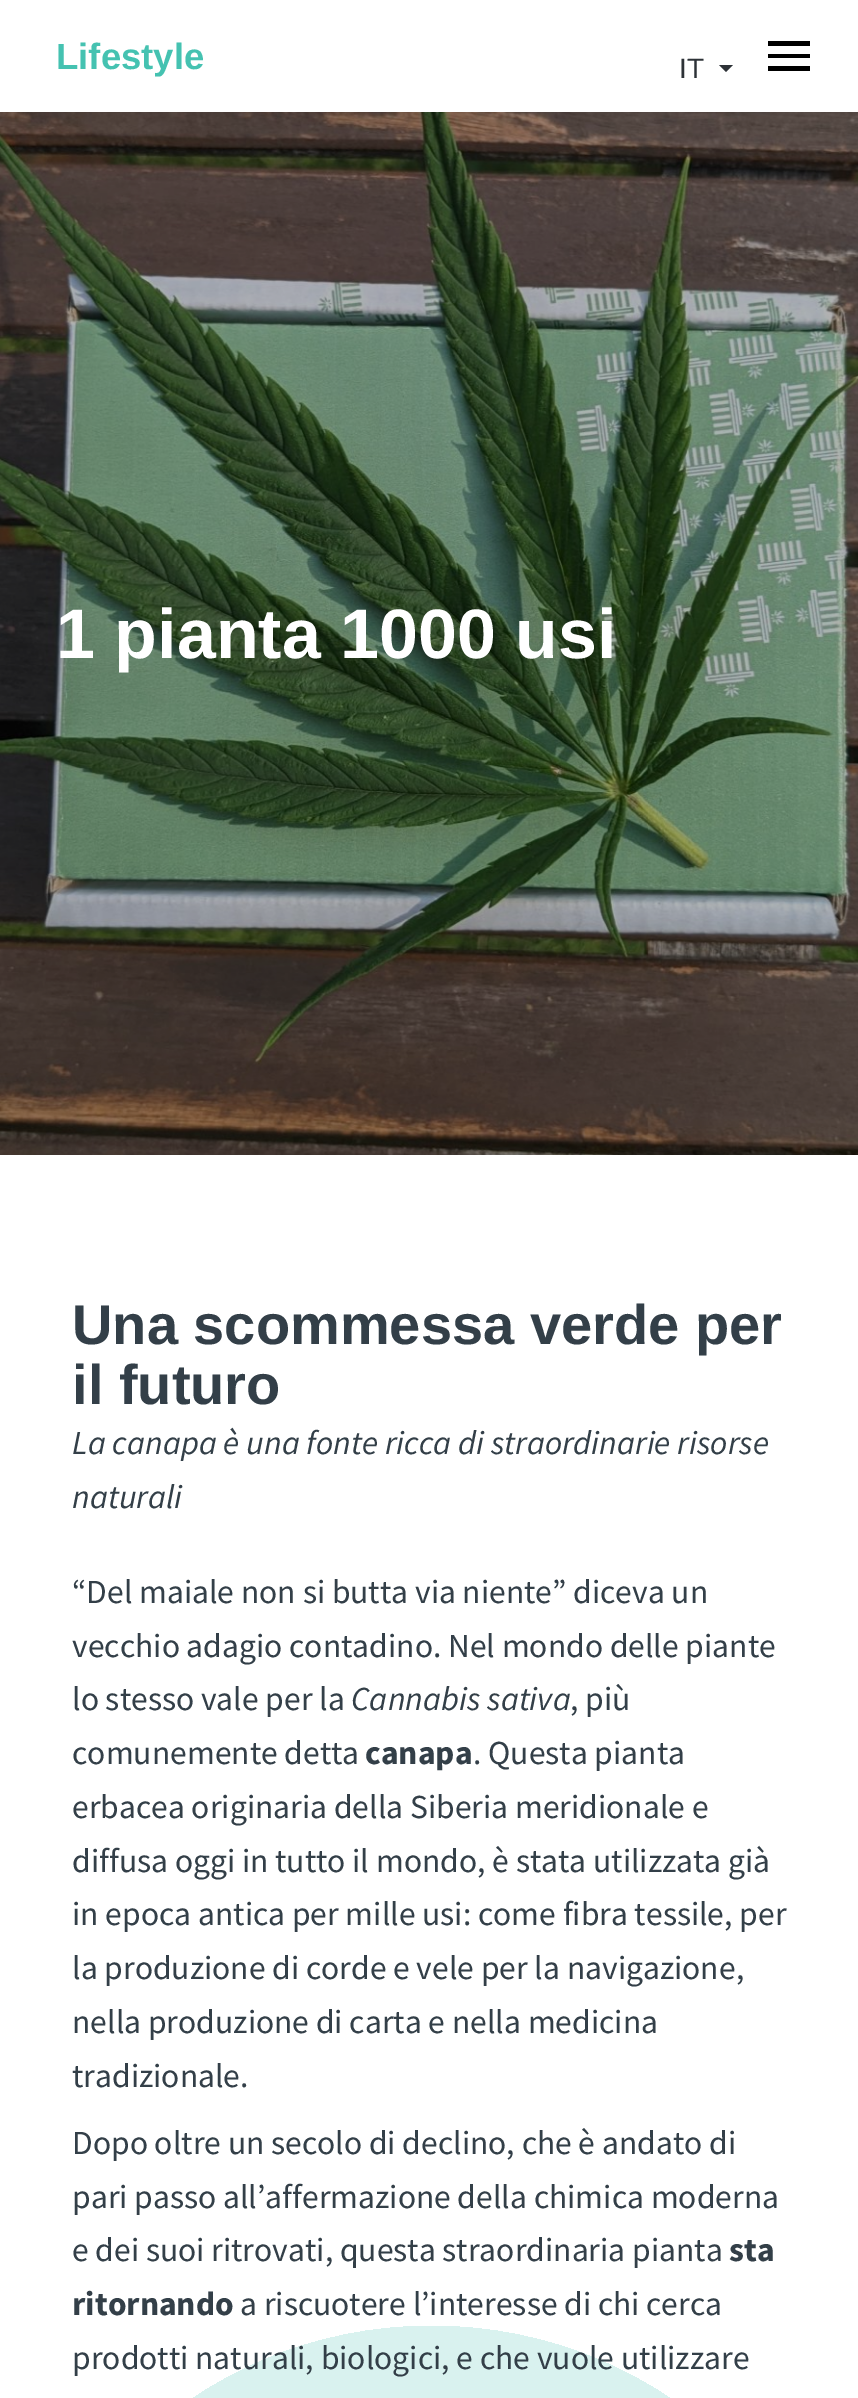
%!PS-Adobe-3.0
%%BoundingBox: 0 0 858 2398
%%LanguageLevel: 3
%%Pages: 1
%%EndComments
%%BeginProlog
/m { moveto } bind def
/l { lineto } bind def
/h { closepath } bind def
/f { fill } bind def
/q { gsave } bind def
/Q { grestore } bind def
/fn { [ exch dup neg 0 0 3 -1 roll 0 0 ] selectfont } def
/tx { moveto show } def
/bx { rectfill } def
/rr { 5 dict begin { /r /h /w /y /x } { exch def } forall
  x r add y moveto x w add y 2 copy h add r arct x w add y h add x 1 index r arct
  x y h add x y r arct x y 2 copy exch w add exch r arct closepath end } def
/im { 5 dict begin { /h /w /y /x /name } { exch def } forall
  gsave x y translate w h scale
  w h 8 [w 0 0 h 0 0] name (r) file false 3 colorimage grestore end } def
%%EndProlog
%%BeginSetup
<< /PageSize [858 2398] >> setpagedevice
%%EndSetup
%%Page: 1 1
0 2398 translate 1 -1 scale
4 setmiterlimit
1 setgray
0 0 858 2398 bx
/LiberationSans-Bold 36.5 fn
0.271 0.761 0.694 setrgbcolor
(Lifestyle) 56 69 tx
/LiberationSans-Regular 28 fn
0.176 0.196 0.216 setrgbcolor
(IT) 679 78 tx
719 65 m 733 65 l 726 72 l h f
0 setgray
768 41 m 768 46 l 810 46 l 810 41 l h 768 54 m 768 58 l 810 58 l 810 54 l h 768 66 m 768 71 l 810 71 l 810 66 l h f
(image0.raw) 0 112 858 1043 im
/LiberationSans-Bold 70 fn
1 setgray
(1 pianta 1000 usi) 56 658 tx
/LiberationSans-Bold 56 fn
0.2 0.247 0.282 setrgbcolor
(Una scommessa verde per) 72 1344 tx
(il futuro) 72 1404 tx
/SourceSansPro-Italic 33.6 fn
(La canapa è una fonte ricca di straordinarie risorse) 72 1454 tx
(naturali) 72 1508 tx
/SourceSansPro-Regular 33.6 fn
(“Del maiale non si butta via niente” diceva un) 72 1603 tx
(vecchio adagio contadino. Nel mondo delle piante) 72 1657 tx
(lo stesso vale per la) 72 1710 tx
/SourceSansPro-Italic 33.6 fn
(Cannabis sativa) 351 1710 tx
/SourceSansPro-Regular 33.6 fn
(, più) 570 1710 tx
(comunemente detta) 72 1764 tx
/SourceSansPro-Bold 33.6 fn
(canapa) 365 1764 tx
/SourceSansPro-Regular 33.6 fn
(. Questa pianta) 473 1764 tx
(erbacea originaria della Siberia meridionale e) 72 1818 tx
(diffusa oggi in tutto il mondo, è stata utilizzata già) 72 1872 tx
(in epoca antica per mille usi: come fibra tessile, per) 72 1925 tx
(la produzione di corde e vele per la navigazione,) 72 1979 tx
(nella produzione di carta e nella medicina) 72 2033 tx
(tradizionale.) 72 2087 tx
(Dopo oltre un secolo di declino, che è andato di) 72 2154 tx
(pari passo all’affermazione della chimica moderna) 72 2208 tx
(e dei suoi ritrovati, questa straordinaria pianta) 72 2261 tx
/SourceSansPro-Bold 33.6 fn
(sta) 729 2261 tx
(ritornando) 72 2315 tx
/SourceSansPro-Regular 33.6 fn
(a riscuotere l’interesse di chi cerca) 240 2315 tx
q 2 2326 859 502 429.5 rr clip newpath
<< /ShadingType 2 /ColorSpace /DeviceRGB /Coords [430 2325 431 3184] /Extend [true true] /Function << /FunctionType 2 /Domain [0 1] /C0 [0.855 0.953 0.937] /C1 [0.8 0.922 0.941] /N 1 >> >> shfill Q
(prodotti naturali, biologici, e che vuole utilizzare) 72 2369 tx
showpage
%%EOF
